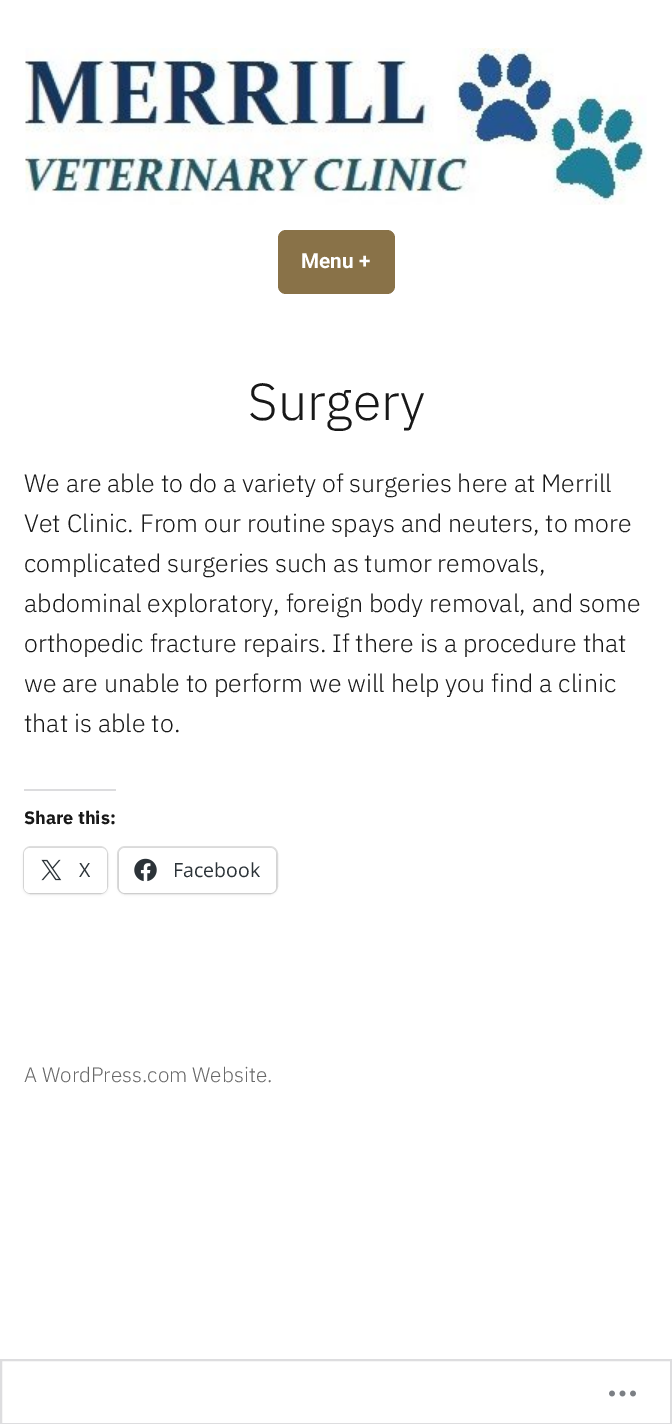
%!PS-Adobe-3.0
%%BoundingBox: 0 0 672 1424
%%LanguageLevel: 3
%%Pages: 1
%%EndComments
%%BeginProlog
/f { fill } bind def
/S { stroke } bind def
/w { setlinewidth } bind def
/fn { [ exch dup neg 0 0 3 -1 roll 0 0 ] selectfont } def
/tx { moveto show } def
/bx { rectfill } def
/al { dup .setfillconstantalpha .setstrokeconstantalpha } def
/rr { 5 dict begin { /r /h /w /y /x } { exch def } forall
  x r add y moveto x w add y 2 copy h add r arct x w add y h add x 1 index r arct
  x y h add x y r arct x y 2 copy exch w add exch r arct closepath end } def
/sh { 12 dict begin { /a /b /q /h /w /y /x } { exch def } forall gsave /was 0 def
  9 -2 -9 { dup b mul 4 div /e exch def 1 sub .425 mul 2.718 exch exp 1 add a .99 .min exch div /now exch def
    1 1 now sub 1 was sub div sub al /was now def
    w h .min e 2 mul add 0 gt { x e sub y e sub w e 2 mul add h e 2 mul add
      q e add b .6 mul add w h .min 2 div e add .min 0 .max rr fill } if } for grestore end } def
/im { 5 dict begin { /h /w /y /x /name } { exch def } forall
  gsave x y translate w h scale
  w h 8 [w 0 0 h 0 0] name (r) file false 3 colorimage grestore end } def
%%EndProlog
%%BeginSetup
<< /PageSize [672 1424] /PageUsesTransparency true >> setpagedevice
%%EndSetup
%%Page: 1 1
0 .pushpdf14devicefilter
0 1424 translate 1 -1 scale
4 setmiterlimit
1 setgray
0 0 672 1424 bx
(image0.raw) 25 48 622 157 im
0.537 0.447 0.282 setrgbcolor
278 230 117 64 8 rr f
/Roboto-Bold 20.75 fn
1 setgray
(Menu +) 301 268 tx
/IBMPlexSans-Light 52 fn
0.094 setgray
(Surgery) 248 420 tx
/IBMPlexSans-Light 25 fn
(We are able to do a variety of surgeries here at Merrill) 24 492 tx
(Vet Clinic. From our routine spays and neuters, to more) 24 532 tx
(complicated surgeries such as tumor removals,) 24 572 tx
(abdominal exploratory, foreign body removal, and some) 24 612 tx
(orthopedic fracture repairs. If there is a procedure that) 24 652 tx
(we are unable to perform we will help you find a clinic) 24 692 tx
(that is able to.) 24 732 tx
0.863 0.863 0.871 setrgbcolor
24 789 92 2 bx
/IBMPlexSans-Bold 18 fn
0.094 setgray
(Share this:) 24 824 tx
0.878 setgray
2 w
24 847 83 46 7 rr S
0 setgray
24 849 83 45 6 1.5 0.12 sh
1 setgray
24 848 83 45 6 rr f
(image1.raw) 41 859 21 22 im
/OpenSans-Regular 19.5 fn
0.173 0.2 0.22 setrgbcolor
(X) 79 877 tx
0.878 setgray
118 847 159 46 7 rr S
0 setgray
119 849 157 45 6 1.5 0.12 sh
1 setgray
119 848 157 45 6 rr f
(image2.raw) 134 858 23 24 im
0.173 0.2 0.22 setrgbcolor
(Facebook) 173 877 tx
/IBMPlexSans-Light 20.75 fn
0.408 setgray
(A WordPress.com Website.) 24 1082 tx
0.867 0.867 0.875 setrgbcolor
1 1360 670 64 rectstroke
(image3.raw) 609 1390 27 7 im
.poppdf14devicefilter showpage
%%EOF
